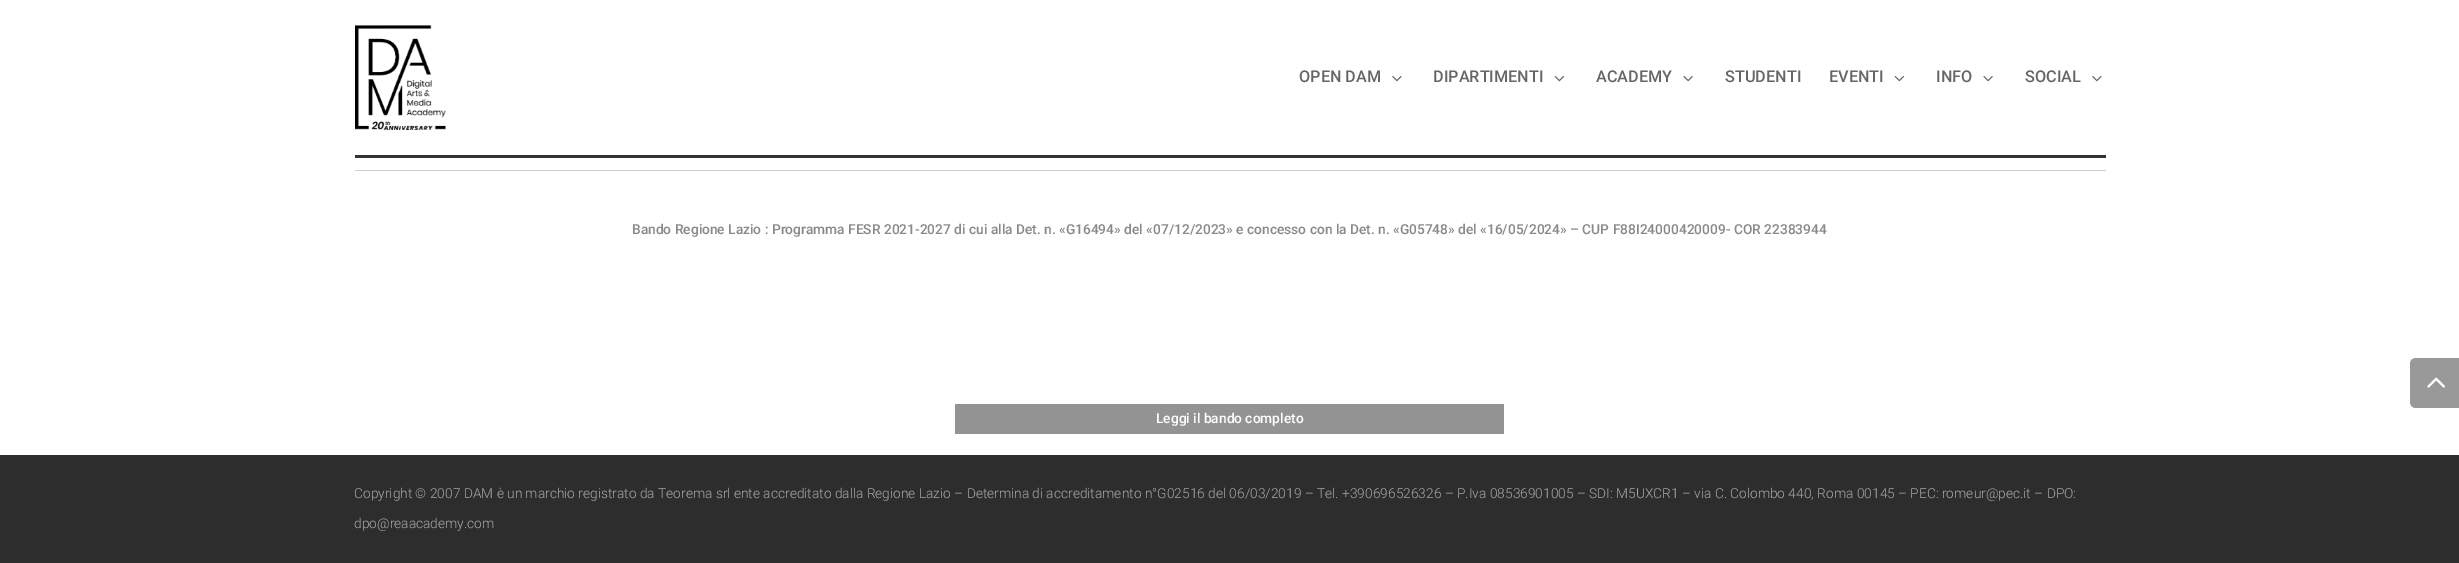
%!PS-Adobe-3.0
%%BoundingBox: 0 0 2459 563
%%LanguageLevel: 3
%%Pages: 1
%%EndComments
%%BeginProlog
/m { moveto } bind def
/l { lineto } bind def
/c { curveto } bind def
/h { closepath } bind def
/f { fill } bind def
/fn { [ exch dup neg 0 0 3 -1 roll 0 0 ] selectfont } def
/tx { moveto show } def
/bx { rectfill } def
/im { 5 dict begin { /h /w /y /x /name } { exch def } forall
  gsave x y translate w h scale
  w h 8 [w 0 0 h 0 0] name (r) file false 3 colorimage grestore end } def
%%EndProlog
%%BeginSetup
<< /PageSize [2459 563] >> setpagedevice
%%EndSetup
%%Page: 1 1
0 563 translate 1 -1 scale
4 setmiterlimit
1 setgray
0 0 2459 563 bx
0.2 setgray
355 155 1751 3 bx
(image0.raw) 355 25 91 105 im
/Roboto-Medium 16.25 fn
0.4 setgray
(OPEN DAM) 1299 82 tx
(image1.raw) 1392 76 10 6 im
(DIPARTIMENTI) 1433 82 tx
(image2.raw) 1554 76 10 6 im
(ACADEMY) 1596 82 tx
(image3.raw) 1683 76 10 6 im
(STUDENTI) 1725 82 tx
(EVENTI) 1829 82 tx
(image2.raw) 1894 76 10 6 im
(INFO) 1936 82 tx
(image3.raw) 1983 76 10 6 im
(SOCIAL) 2025 82 tx
(image1.raw) 2092 76 10 6 im
0.808 setgray
355 170 1751 1 bx
/Roboto-Medium 13.75 fn
0.537 setgray
(Bando Regione Lazio : Programma FESR 2021-2027 di cui alla Det. n. «G16494» del «07/12/2023» e concesso con la Det. n. «G05748» del «16/05/2024» – CUP F88I24000420009- COR 22383944) 632 234 tx
0.576 setgray
955 404 549 30 bx
1 setgray
(Leggi il bando completo) 1156 423 tx
0.176 setgray
0 455 2459 108 bx
/Roboto-Light 13.75 fn
0.659 setgray
(Copyright © 2007 DAM è un marchio registrato da Teorema srl ente accreditato dalla Regione Lazio – Determina di accreditamento n°G02516 del 06/03/2019 – Tel. +390696526326 – P.Iva 08536901005 – SDI: M5UXCR1 – via C. Colombo 440, Roma 00145 – PEC: romeur@pec.it – DPO:) 354 498 tx
(dpo@reaacademy.com) 354 528 tx
0.6 setgray
2416 358 m 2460 358 l 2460 408 l 2416 408 l 2412.5 408 2410 405.5 2410 402 c 2410 364 l 2410 360.5 2412.5 358 2416 358 c h f
(image4.raw) 2427 377 18 11 im
showpage
%%EOF
